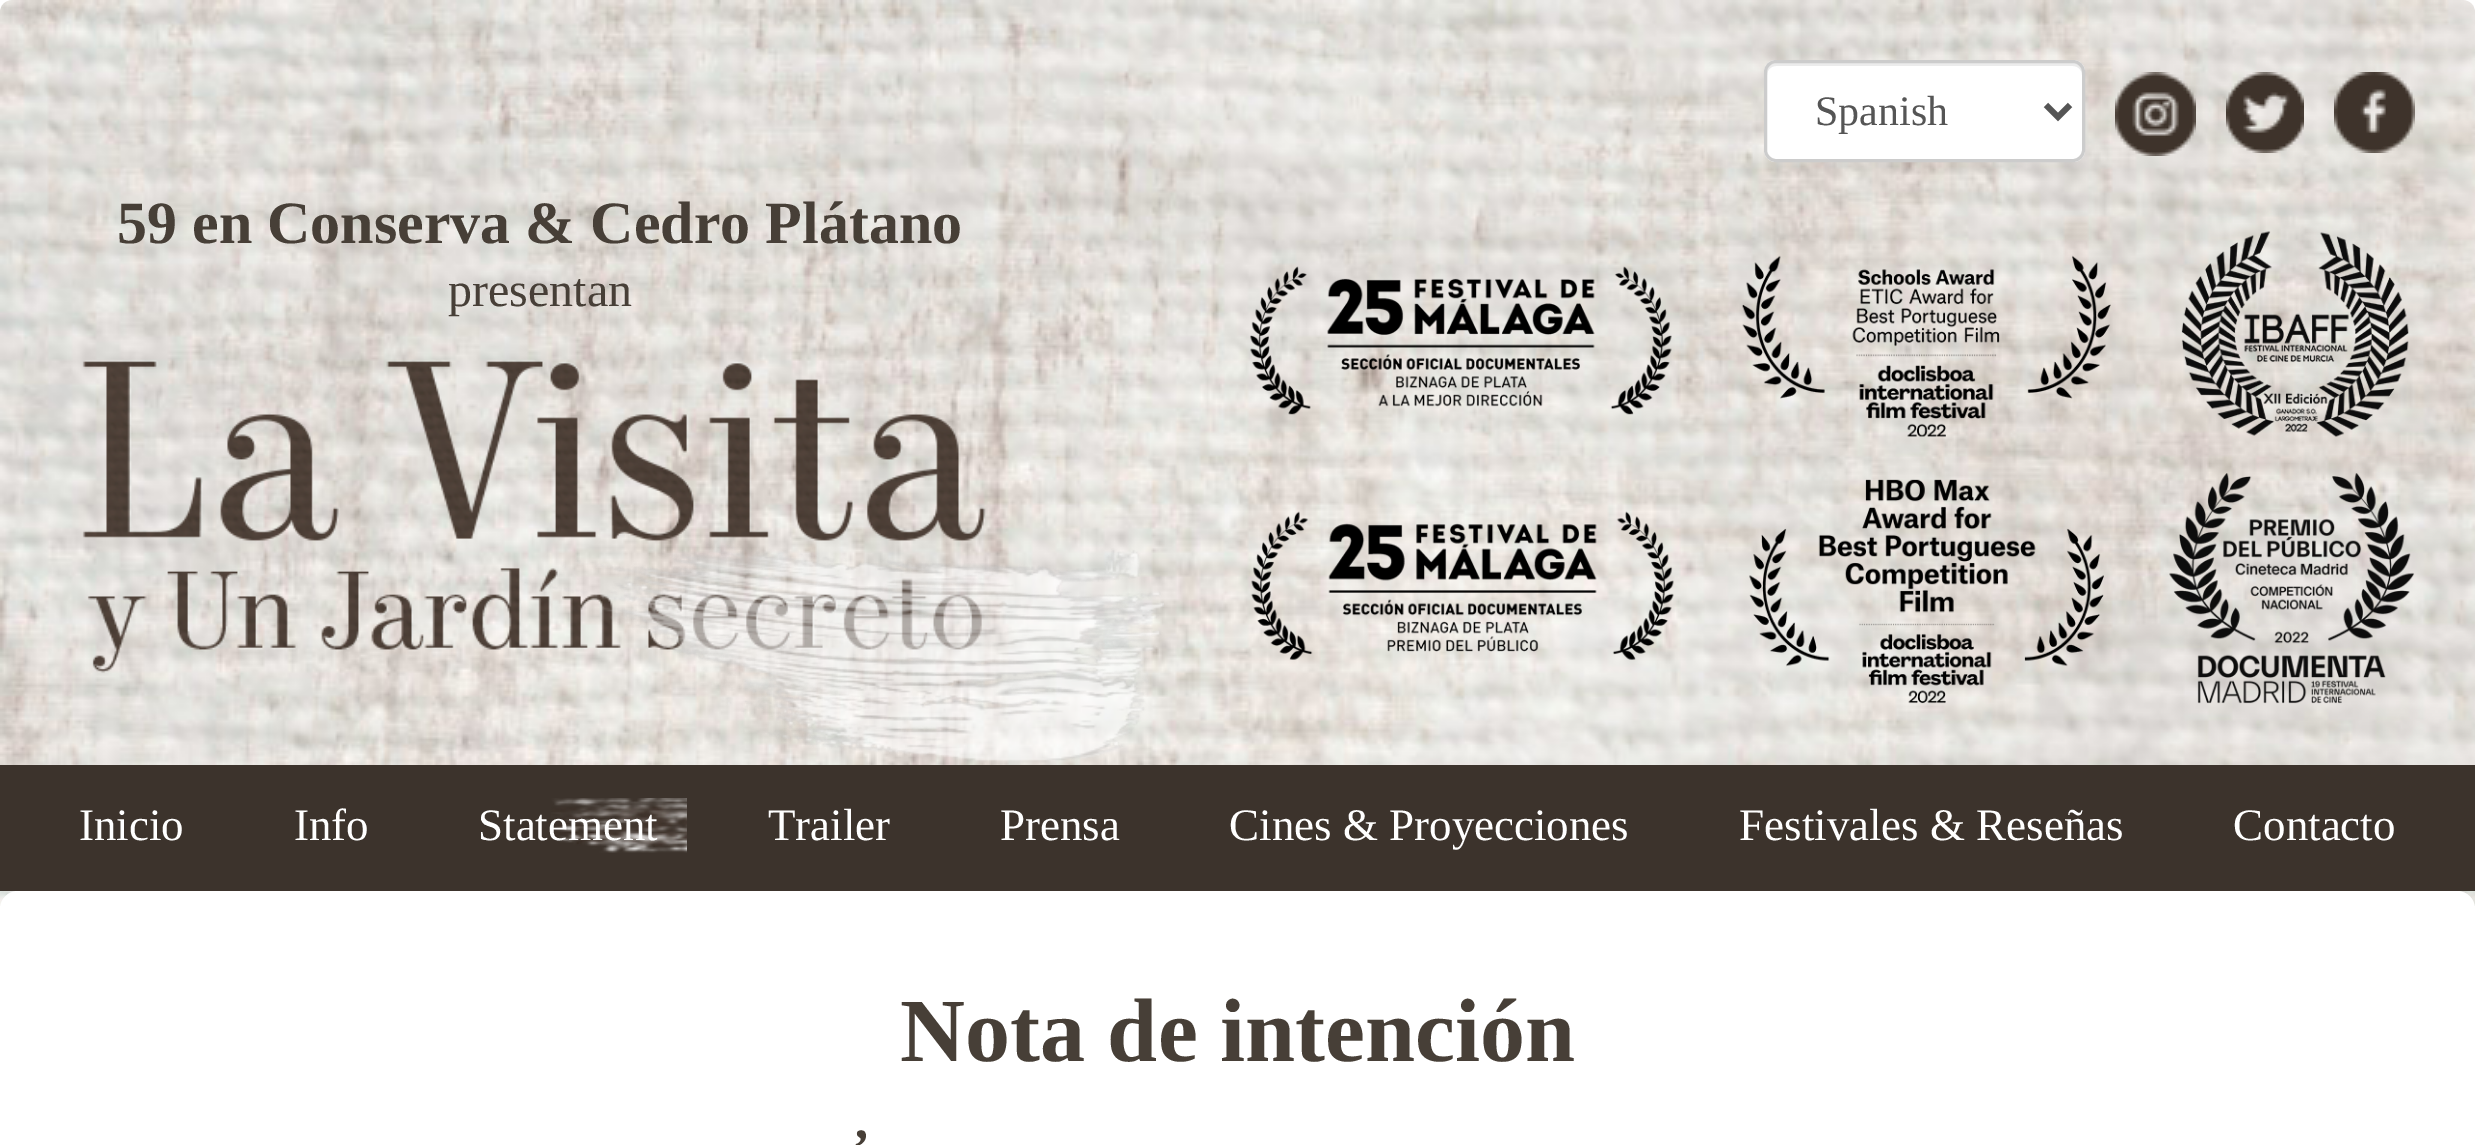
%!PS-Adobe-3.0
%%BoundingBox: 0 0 2475 1145
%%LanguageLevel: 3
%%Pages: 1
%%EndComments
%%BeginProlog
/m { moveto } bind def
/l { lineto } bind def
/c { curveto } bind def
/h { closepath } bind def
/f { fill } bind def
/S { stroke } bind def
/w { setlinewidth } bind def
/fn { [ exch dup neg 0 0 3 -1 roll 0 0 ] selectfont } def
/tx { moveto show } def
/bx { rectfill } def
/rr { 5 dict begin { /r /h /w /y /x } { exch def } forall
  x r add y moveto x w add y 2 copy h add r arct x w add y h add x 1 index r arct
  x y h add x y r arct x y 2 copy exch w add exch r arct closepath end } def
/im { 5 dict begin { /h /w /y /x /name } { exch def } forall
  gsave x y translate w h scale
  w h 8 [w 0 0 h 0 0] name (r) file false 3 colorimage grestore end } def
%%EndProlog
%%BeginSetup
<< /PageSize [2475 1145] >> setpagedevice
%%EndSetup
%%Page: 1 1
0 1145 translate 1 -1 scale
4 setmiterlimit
1 setgray
0 0 2475 1145 bx
(image0.raw) 0 0 2475 765 im
1764 60 321 102 12 rr f
0.925 setgray
1776 66 m 2073 66 l 2078 66 2082 70 2082 75 c 2082 72 l 2082 67 2078 63 2073 63 c 1776 63 l 1771 63 1767 67 1767 72 c 1767 75 l 1767 70 1771 66 1776 66 c h f
0.8 setgray
3 w
1765.5 61.5 318 99 10.5 rr S
0.333 setgray
6 w
2046 105 m 2058 117 l 2070 105 l S
/LiberationSerif-Regular 42 fn
(Spanish) 1815 125 tx
(image1.raw) 2115 72 81 84 im
(image2.raw) 2226 72 78 81 im
(image3.raw) 2334 72 81 81 im
/LiberationSerif-Bold 60 fn
0.278 0.247 0.216 setrgbcolor
(59 en Conserva & Cedro Plátano) 117 243 tx
/LiberationSerif-Regular 48 fn
(presentan) 448 306 tx
(image4.raw) 82 360 1082 401 im
(image5.raw) 1250 231 1165 473 im
0.235 0.2 0.173 setrgbcolor
0 765 2475 126 bx
/LiberationSerif-Regular 45 fn
1 setgray
(Inicio) 79 840 tx
(Info) 294 840 tx
(image6.raw) 551 798 136 55 im
(Statement) 478 840 tx
(Trailer) 768 840 tx
(Prensa) 1000 840 tx
(Cines & Proyecciones) 1229 840 tx
(Festivales & Reseñas) 1739 840 tx
(Contacto) 2233 840 tx
(image7.raw) 0 891 2475 18 im
0 891 2475 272 18 rr f
/LiberationSerif-Bold 90 fn
0.278 0.247 0.216 setrgbcolor
(Nota de intención) 900 1061 tx
/LiberationSerif-BoldItalic 54 fn
(’) 850 1166 tx
showpage
%%EOF
